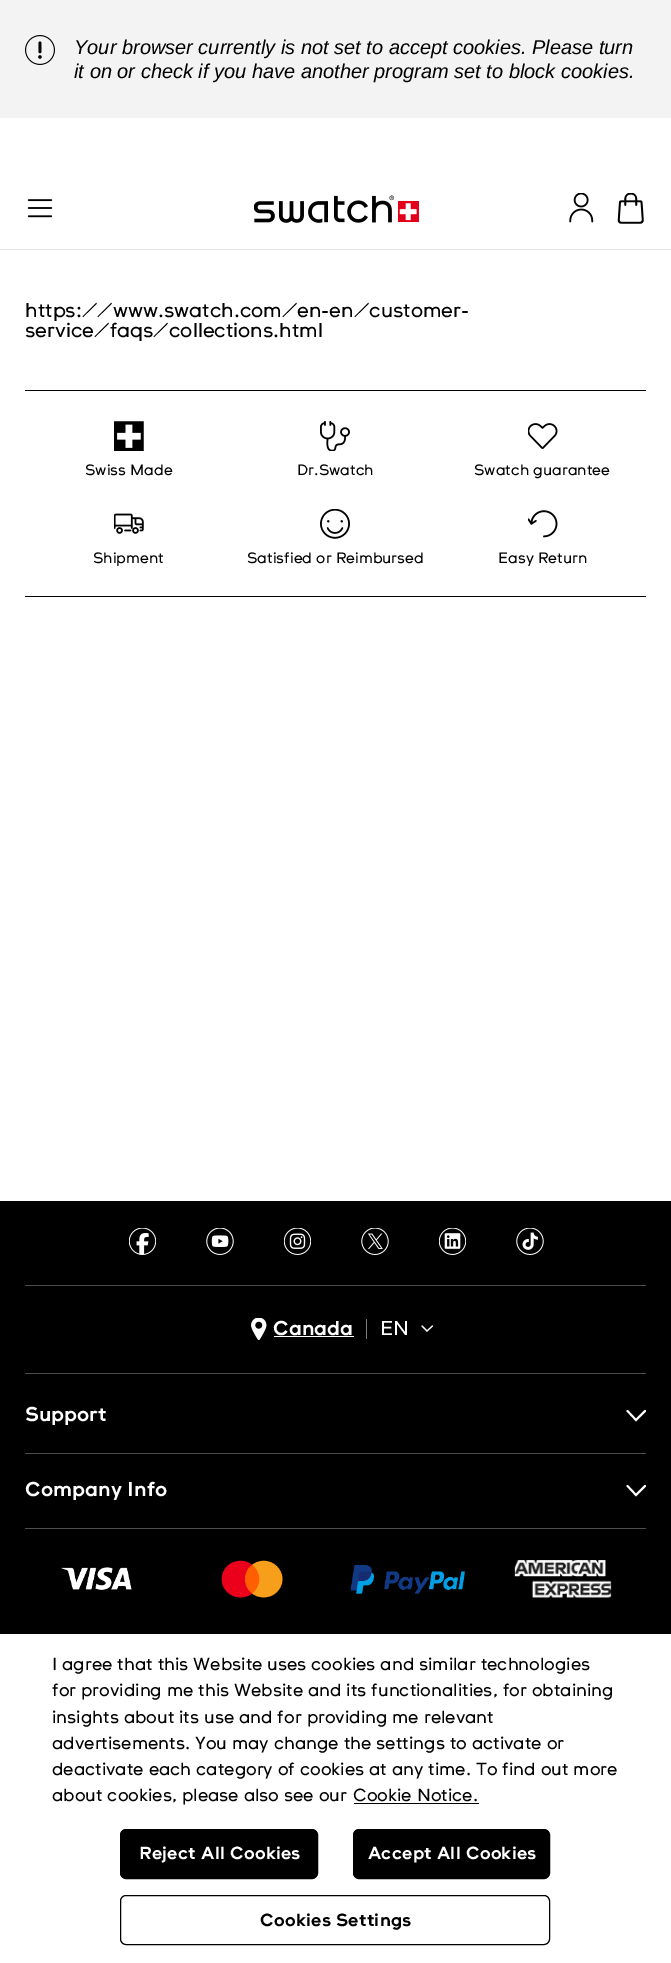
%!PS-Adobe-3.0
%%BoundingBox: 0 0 671 1963
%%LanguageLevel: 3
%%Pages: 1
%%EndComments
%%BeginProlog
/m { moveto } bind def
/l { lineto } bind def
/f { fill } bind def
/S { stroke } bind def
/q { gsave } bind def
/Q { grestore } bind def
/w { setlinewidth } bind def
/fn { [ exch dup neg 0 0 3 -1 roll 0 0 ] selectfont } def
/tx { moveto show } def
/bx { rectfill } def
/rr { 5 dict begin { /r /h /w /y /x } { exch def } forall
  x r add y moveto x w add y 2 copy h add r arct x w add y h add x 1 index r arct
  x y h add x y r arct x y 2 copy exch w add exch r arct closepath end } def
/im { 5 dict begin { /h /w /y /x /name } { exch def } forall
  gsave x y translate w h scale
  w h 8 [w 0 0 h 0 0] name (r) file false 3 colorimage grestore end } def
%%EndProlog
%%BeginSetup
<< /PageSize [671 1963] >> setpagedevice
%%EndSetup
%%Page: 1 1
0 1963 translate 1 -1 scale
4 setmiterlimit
1 setgray
0 0 671 1963 bx
0.953 setgray
0 0 671 118 bx
(image0.raw) 25 35 30 30 im
/LiberationSans-Italic 20 fn
0 setgray
(Your browser currently is not set to accept cookies. Please turn) 74 54 tx
(it on or check if you have another program set to block cookies.) 74 78 tx
0.898 setgray
0 249 671 1 bx
(image1.raw) 27 199 26 19 im
(image2.raw) 254 195 165 28 im
(image3.raw) 569 193 25 30 im
(image4.raw) 617 193 27 31 im
/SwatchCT-Regular 20 fn
0 setgray
(https://www.swatch.com/en-en/customer-) 25 317 tx
(service/faqs/collections.html) 25 337 tx
25 390 621 1 bx
25 596 621 1 bx
(image5.raw) 114 421 30 30 im
/SwatchCT-Regular 15 fn
(Swiss Made) 85 475 tx
(image6.raw) 320 421 30 30 im
(Dr.Swatch) 297 475 tx
(image7.raw) 528 423 30 26 im
(Swatch guarantee) 474 475 tx
(image8.raw) 114 513 30 21 im
(Shipment) 93 563 tx
(image9.raw) 320 509 30 30 im
(Satisfied or Reimbursed) 247 563 tx
(image10.raw) 528 510 30 28 im
(Easy Return) 498 563 tx
0 1201 671 433 bx
0.302 setgray
25 1373 621 1 bx
25 1285 621 1 bx
(image11.raw) 129 1228 27 27 im
(image12.raw) 206 1228 28 27 im
(image13.raw) 284 1228 27 27 im
(image14.raw) 361 1228 28 27 im
(image15.raw) 439 1228 27 27 im
(image16.raw) 516 1228 28 27 im
(image17.raw) 251 1318 16 22 im
/SwatchCT-Bold 20 fn
1 setgray
(Canada) 273 1335 tx
274 1336 80 1 bx
0.49 setgray
366 1319 1 20 bx
/SwatchCT-Regular 20 fn
1 setgray
(EN) 380 1335 tx
1.1 w
1 setlinecap
422 1326 m 427 1331 l 432.5 1326 l S
0.302 setgray
25 1453 621 1 bx
/SwatchCT-Bold 20 fn
1 setgray
(Support) 25 1421 tx
1.9 w
627.5 1411 m 636 1420 l 645 1411 l S
0.302 setgray
25 1528 621 1 bx
1 setgray
(Company Info) 25 1496 tx
627.5 1486 m 636 1495 l 645 1486 l S
(image18.raw) 61 1567 71 23 im
(image19.raw) 221 1560 62 38 im
(image20.raw) 350 1564 115 30 im
(image21.raw) 514 1560 98 38 im
/SwatchCT-Regular 17.5 fn
0 setgray
(I agree that this Website uses cookies and similar technologies) 52 1670 tx
(for providing me this Website and its functionalities, for obtaining) 52 1696 tx
(insights about its use and for providing me relevant) 52 1723 tx
(advertisements. You may change the settings to activate or) 52 1749 tx
(deactivate each category of cookies at any time. To find out more) 52 1775 tx
(about cookies, please also see our) 52 1801 tx
(Cookie Notice.) 353 1801 tx
354 1803 125 1 bx
120.5 1829.5 197 49 5.5 rr q f Q
1 w
0 setlinecap
S
/SwatchCT-Bold 17.5 fn
1 setgray
139 1859 m 0.2 0 (Reject All Cookies) ashow
0 setgray
353.5 1829.5 196 49 5.5 rr q f Q
S
1 setgray
368 1859 m 0.2 0 (Accept All Cookies) ashow
0 setgray
120.5 1895.5 429 49 5.5 rr S
260 1926 m 0.2 0 (Cookies Settings) ashow
showpage
%%EOF
